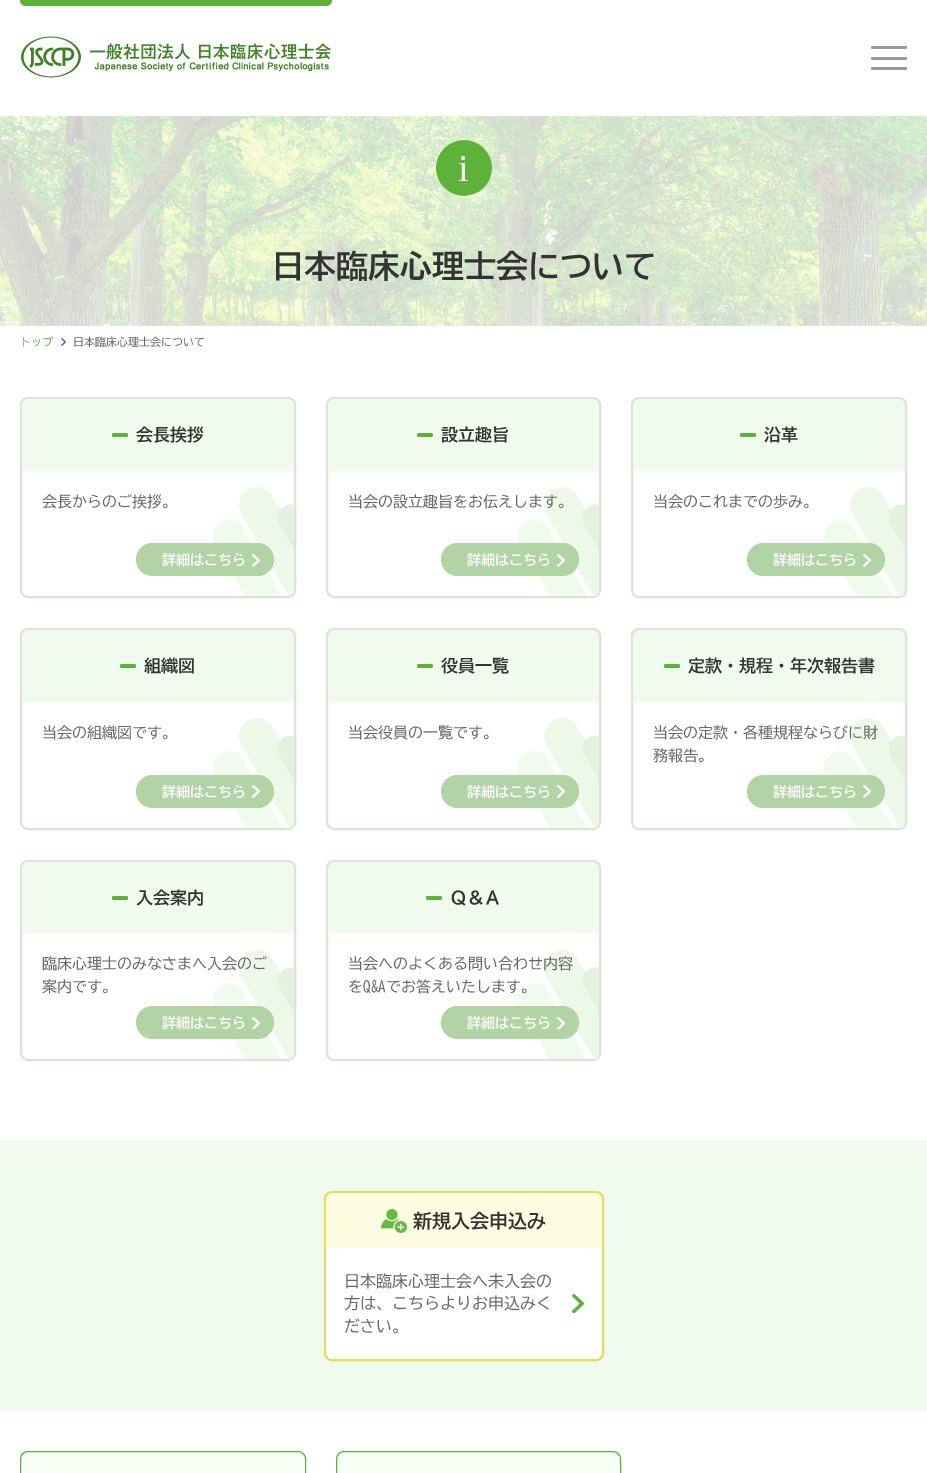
%!PS-Adobe-3.0
%%BoundingBox: 0 0 927 1473
%%LanguageLevel: 3
%%Pages: 1
%%EndComments
%%BeginProlog
/m { moveto } bind def
/l { lineto } bind def
/c { curveto } bind def
/h { closepath } bind def
/f { fill } bind def
/S { stroke } bind def
/q { gsave } bind def
/Q { grestore } bind def
/w { setlinewidth } bind def
/fn { [ exch dup neg 0 0 3 -1 roll 0 0 ] selectfont } def
/tx { moveto show } def
/bx { rectfill } def
/rr { 5 dict begin { /r /h /w /y /x } { exch def } forall
  x r add y moveto x w add y 2 copy h add r arct x w add y h add x 1 index r arct
  x y h add x y r arct x y 2 copy exch w add exch r arct closepath end } def
/im { 5 dict begin { /h /w /y /x /name } { exch def } forall
  gsave x y translate w h scale
  w h 8 [w 0 0 h 0 0] name (r) file false 3 colorimage grestore end } def
%%EndProlog
%%BeginSetup
<< /PageSize [927 1473] >> setpagedevice
%%EndSetup
%%Page: 1 1
0 1473 translate 1 -1 scale
4 setmiterlimit
1 setgray
0 0 927 1473 bx
0.365 0.698 0.227 setrgbcolor
20 0 m 332 0 l 332 3.5 329.5 6 326 6 c 26 6 l 22.5 6 20 3.5 20 0 c h f
(image0.raw) 21 36 310 42 im
0.6 setgray
871 46 36 3 1.5 rr f
871 57 36 3 1.5 rr f
871 67 36 3 1.5 rr f
(image1.raw) 0 116 927 210 im
(image2.raw) 436 140 56 56 im
/BIZUDGothic-Bold 32 fn
0.2 setgray
(日本臨床心理士会について) 272 278 tx
/BIZUDGothic-Regular 11 fn
0.365 0.698 0.227 setrgbcolor
(トップ) 20 346 tx
(image3.raw) 61 338 5 8 im
0.4 setgray
(日本臨床心理士会について) 73 346 tx
0.863 0.894 0.851 setrgbcolor
2 w
21 398 274 199 7 rr S
0.945 0.984 0.929 setrgbcolor
30 399 m 286 399 l 290.5 399 294 402.5 294 407 c 294 471 l 22 471 l 22 407 l 22 402.5 25.5 399 30 399 c h f
0.365 0.698 0.227 setrgbcolor
112 433 16 4 2 rr f
/BIZUDGothic-Bold 17 fn
0.2 setgray
(会長挨拶) 136 441 tx
/BIZUDGothic-Regular 15 fn
0.4 setgray
(会長からのご挨拶。) 42 507 tx
(image5.raw) 213 487 81 109 im
0.698 0.827 0.647 setrgbcolor
136 543 138 33 16.5 rr f
/BIZUDGothic-Bold 14 fn
1 setgray
(詳細はこちら) 162 565 tx
(image4.raw) 252 554 8 13 im
0.863 0.894 0.851 setrgbcolor
327 398 273 199 7 rr S
0.945 0.984 0.929 setrgbcolor
336 399 m 591 399 l 595.5 399 599 402.5 599 407 c 599 471 l 328 471 l 328 407 l 328 402.5 331.5 399 336 399 c h f
0.365 0.698 0.227 setrgbcolor
417 433 16 4 2 rr f
/BIZUDGothic-Bold 17 fn
0.2 setgray
(設立趣旨) 441 441 tx
(image5.raw) 518 487 81 109 im
/BIZUDGothic-Regular 15 fn
0.4 setgray
(当会の設立趣旨をお伝えします。) 348 507 tx
0.698 0.827 0.647 setrgbcolor
441 543 138 33 16.5 rr f
/BIZUDGothic-Bold 14 fn
1 setgray
(詳細はこちら) 467 565 tx
(image4.raw) 557 554 8 13 im
0.863 0.894 0.851 setrgbcolor
632 398 274 199 7 rr S
0.945 0.984 0.929 setrgbcolor
641 399 m 897 399 l 901.5 399 905 402.5 905 407 c 905 471 l 633 471 l 633 407 l 633 402.5 636.5 399 641 399 c h f
0.365 0.698 0.227 setrgbcolor
740 433 16 4 2 rr f
/BIZUDGothic-Bold 17 fn
0.2 setgray
(沿革) 764 441 tx
/BIZUDGothic-Regular 15 fn
0.4 setgray
(当会のこれまでの歩み。) 653 507 tx
(image5.raw) 824 487 81 109 im
0.698 0.827 0.647 setrgbcolor
747 543 138 33 16.5 rr f
/BIZUDGothic-Bold 14 fn
1 setgray
(詳細はこちら) 773 565 tx
(image4.raw) 863 554 8 13 im
0.863 0.894 0.851 setrgbcolor
21 629 274 200 7 rr S
0.945 0.984 0.929 setrgbcolor
30 630 m 286 630 l 290.5 630 294 633.5 294 638 c 294 702 l 22 702 l 22 638 l 22 633.5 25.5 630 30 630 c h f
0.365 0.698 0.227 setrgbcolor
120 664 16 4 2 rr f
/BIZUDGothic-Bold 17 fn
0.2 setgray
(組織図) 144 672 tx
/BIZUDGothic-Regular 15 fn
0.4 setgray
(当会の組織図です。) 42 738 tx
(image6.raw) 213 718 81 110 im
0.698 0.827 0.647 setrgbcolor
136 775 138 33 16.5 rr f
/BIZUDGothic-Bold 14 fn
1 setgray
(詳細はこちら) 162 797 tx
(image4.raw) 252 785 8 13 im
0.863 0.894 0.851 setrgbcolor
327 629 273 200 7 rr S
0.945 0.984 0.929 setrgbcolor
336 630 m 591 630 l 595.5 630 599 633.5 599 638 c 599 702 l 328 702 l 328 638 l 328 633.5 331.5 630 336 630 c h f
0.365 0.698 0.227 setrgbcolor
417 664 16 4 2 rr f
/BIZUDGothic-Bold 17 fn
0.2 setgray
(役員一覧) 441 672 tx
/BIZUDGothic-Regular 15 fn
0.4 setgray
(当会役員の一覧です。) 348 738 tx
(image6.raw) 518 718 81 110 im
0.698 0.827 0.647 setrgbcolor
441 775 138 33 16.5 rr f
/BIZUDGothic-Bold 14 fn
1 setgray
(詳細はこちら) 467 797 tx
(image4.raw) 557 785 8 13 im
0.863 0.894 0.851 setrgbcolor
632 629 274 200 7 rr S
0.945 0.984 0.929 setrgbcolor
641 630 m 897 630 l 901.5 630 905 633.5 905 638 c 905 702 l 633 702 l 633 638 l 633 633.5 636.5 630 641 630 c h f
0.365 0.698 0.227 setrgbcolor
664 664 16 4 2 rr f
/BIZUDGothic-Bold 17 fn
0.2 setgray
(定款・規程・年次報告書) 688 672 tx
(image6.raw) 824 718 81 110 im
/BIZUDGothic-Regular 15 fn
0.4 setgray
(当会の定款・各種規程ならびに財) 653 738 tx
(務報告。) 653 761 tx
0.698 0.827 0.647 setrgbcolor
747 775 138 33 16.5 rr f
/BIZUDGothic-Bold 14 fn
1 setgray
(詳細はこちら) 773 797 tx
(image4.raw) 863 785 8 13 im
0.863 0.894 0.851 setrgbcolor
21 861 274 199 7 rr S
0.945 0.984 0.929 setrgbcolor
30 862 m 286 862 l 290.5 862 294 865.5 294 870 c 294 933 l 22 933 l 22 870 l 22 865.5 25.5 862 30 862 c h f
0.365 0.698 0.227 setrgbcolor
112 896 16 4 2 rr f
/BIZUDGothic-Bold 17 fn
0.2 setgray
(入会案内) 136 904 tx
(image5.raw) 213 950 81 109 im
/BIZUDGothic-Regular 15 fn
0.4 setgray
(臨床心理士のみなさまへ入会のご) 42 969 tx
(案内です。) 42 992 tx
0.698 0.827 0.647 setrgbcolor
136 1006 138 33 16.5 rr f
/BIZUDGothic-Bold 14 fn
1 setgray
(詳細はこちら) 162 1028 tx
(image7.raw) 252 1017 8 12 im
0.863 0.894 0.851 setrgbcolor
327 861 273 199 7 rr S
0.945 0.984 0.929 setrgbcolor
336 862 m 591 862 l 595.5 862 599 865.5 599 870 c 599 933 l 328 933 l 328 870 l 328 865.5 331.5 862 336 862 c h f
0.365 0.698 0.227 setrgbcolor
426 896 16 4 2 rr f
/BIZUDGothic-Bold 17 fn
0.2 setgray
(Ｑ＆Ａ) 450 904 tx
(image5.raw) 518 950 81 109 im
/BIZUDGothic-Regular 15 fn
0.4 setgray
(当会へのよくある問い合わせ内容) 348 969 tx
(をQ&Aでお答えいたします。) 348 992 tx
0.698 0.827 0.647 setrgbcolor
441 1006 138 33 16.5 rr f
/BIZUDGothic-Bold 14 fn
1 setgray
(詳細はこちら) 467 1028 tx
(image7.raw) 557 1017 8 12 im
0.945 0.984 0.929 setrgbcolor
0 1141 927 270 bx
1 setgray
325 1192 278 168 7 rr q f Q
0.886 0.867 0.357 setrgbcolor
S
0.996 0.992 0.882 setrgbcolor
334 1193 m 594 1193 l 598.5 1193 602 1196.5 602 1201 c 602 1248 l 326 1248 l 326 1201 l 326 1196.5 329.5 1193 334 1193 c h f
(image8.raw) 381 1209 26 24 im
/BIZUDGothic-Bold 19 fn
0.2 setgray
(新規入会申込み) 413 1228 tx
1 setgray
326 1248 m 602 1248 l 602 1351 l 602 1355.5 598.5 1359 594 1359 c 334 1359 l 329.5 1359 326 1355.5 326 1351 c h f
/BIZUDGothic-Regular 16 fn
0.4 setgray
(日本臨床心理士会へ未入会の) 344 1287 tx
(方は、こちらよりお申込みく) 344 1309 tx
(image9.raw) 572 1294 12 19 im
(ださい。) 344 1332 tx
0.969 1 0.957 setrgbcolor
20.5 1451.5 285 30 7.5 rr q f Q
0.365 0.698 0.227 setrgbcolor
1 w
S
0.969 1 0.957 setrgbcolor
336.5 1451.5 284 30 7.5 rr q f Q
0.365 0.698 0.227 setrgbcolor
S
showpage
%%EOF
